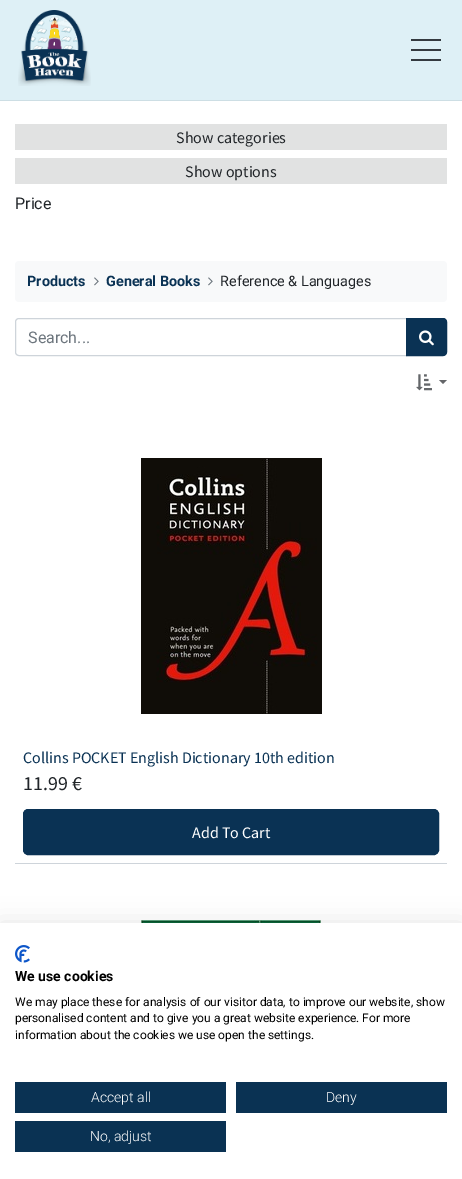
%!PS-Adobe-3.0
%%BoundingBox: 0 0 462 1179
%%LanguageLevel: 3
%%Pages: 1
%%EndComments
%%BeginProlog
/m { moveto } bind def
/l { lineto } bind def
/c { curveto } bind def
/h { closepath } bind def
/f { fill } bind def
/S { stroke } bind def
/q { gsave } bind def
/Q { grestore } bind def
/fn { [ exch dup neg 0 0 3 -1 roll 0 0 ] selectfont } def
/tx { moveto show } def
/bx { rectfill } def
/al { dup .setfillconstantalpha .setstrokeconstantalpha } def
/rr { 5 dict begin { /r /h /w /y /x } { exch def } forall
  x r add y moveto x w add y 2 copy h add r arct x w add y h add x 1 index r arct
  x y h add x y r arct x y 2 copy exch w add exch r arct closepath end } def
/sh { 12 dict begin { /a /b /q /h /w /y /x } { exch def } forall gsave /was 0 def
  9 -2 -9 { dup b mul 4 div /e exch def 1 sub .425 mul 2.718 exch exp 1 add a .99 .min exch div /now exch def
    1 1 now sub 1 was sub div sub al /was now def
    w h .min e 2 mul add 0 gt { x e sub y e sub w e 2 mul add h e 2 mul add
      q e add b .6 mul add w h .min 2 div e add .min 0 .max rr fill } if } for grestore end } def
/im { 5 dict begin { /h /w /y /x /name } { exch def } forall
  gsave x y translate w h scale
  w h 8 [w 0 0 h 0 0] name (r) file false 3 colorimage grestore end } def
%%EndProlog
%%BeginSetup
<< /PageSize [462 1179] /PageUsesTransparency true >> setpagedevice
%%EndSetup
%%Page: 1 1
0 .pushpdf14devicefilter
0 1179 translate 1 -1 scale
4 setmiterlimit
1 setgray
0 0 462 1179 bx
0.871 0.941 0.965 setrgbcolor
0 0 462 100 bx
0.804 0.871 0.894 setrgbcolor
0 100 462 1 bx
(image0.raw) 18 10 73 76 im
0.204 0.227 0.251 setrgbcolor
411 59 30 2 bx
411 39 30 2 bx
411 49 30 2 bx
0.882 0.886 0.886 setrgbcolor
15 124 432 26 bx
/SourceSansPro-Regular 16 fn
0.129 0.145 0.161 setrgbcolor
(Show categories) 176 143 tx
0.882 0.886 0.886 setrgbcolor
15 158 432 26 bx
0.129 0.145 0.161 setrgbcolor
(Show options) 185 177 tx
/Roboto-Regular 16 fn
(Price) 15 209 tx
0.973 0.976 0.98 setrgbcolor
15 261 432 41 4 rr f
/Roboto-Bold 14.4 fn
0.039 0.196 0.329 setrgbcolor
(Products) 27 286 tx
(image1.raw) 94 277 5 9 im
(General Books) 106 286 tx
(image1.raw) 208 277 5 9 im
/Roboto-Regular 14.4 fn
0.129 0.145 0.161 setrgbcolor
(Reference & Languages) 220 286 tx
0.808 0.831 0.855 setrgbcolor
19 318.5 m 406.5 318.5 l 406.5 355.5 l 19 355.5 l 17 355.5 15.5 354 15.5 352 c 15.5 322 l 15.5 320 17 318.5 19 318.5 c h S
/Roboto-Regular 16 fn
0.424 0.459 0.49 setrgbcolor
(Search...) 28 343 tx
0.039 0.196 0.329 setrgbcolor
406.5 318.5 m 443 318.5 l 445 318.5 446.5 320 446.5 322 c 446.5 352 l 446.5 354 445 355.5 443 355.5 c 406.5 355.5 l h q f Q
S
(image2.raw) 419 330 15 16 im
(image3.raw) 416 374 16 17 im
0.392 0.4 0.412 setrgbcolor
439 380 m 447 380 l 443 384 l h f
0.808 0.831 0.855 setrgbcolor
15 863 432 1 bx
(image4.raw) 141 458 181 256 im
/SourceSansPro-Regular 16 fn
0.039 0.196 0.329 setrgbcolor
(Collins POCKET English Dictionary 10th edition) 23 763 tx
/SourceSansPro-Regular 20 fn
0.129 0.145 0.161 setrgbcolor
(11.99 €) 23 790 tx
0.039 0.196 0.329 setrgbcolor
23.5 809.5 415 45 4.5 rr q f Q
S
/SourceSansPro-Regular 16 fn
1 setgray
(Add To Cart) 192 838 tx
(image5.raw) 141 920 180 3 im
0 setgray
0 923 462 256 0 12 0.1 sh
1 setgray
0 923 462 256 bx
(image6.raw) 15 945 15 18 im
/Roboto-Bold 14 fn
0 setgray
(We use cookies) 15 981 tx
/Roboto-Regular 12 fn
(We may place these for analysis of our visitor data, to improve our website, show) 15 1006 tx
(personalised content and to give you a great website experience. For more) 15 1022 tx
(information about the cookies we use open the settings.) 15 1039 tx
0.039 0.196 0.325 setrgbcolor
15 1082 211 31 bx
/Roboto-Light 14 fn
1 setgray
(Accept all) 91 1102 tx
0.039 0.196 0.325 setrgbcolor
236 1082 211 31 bx
1 setgray
(Deny) 326 1102 tx
0.039 0.196 0.325 setrgbcolor
15 1121 211 31 bx
1 setgray
(No, adjust) 90 1141 tx
.poppdf14devicefilter showpage
%%EOF
